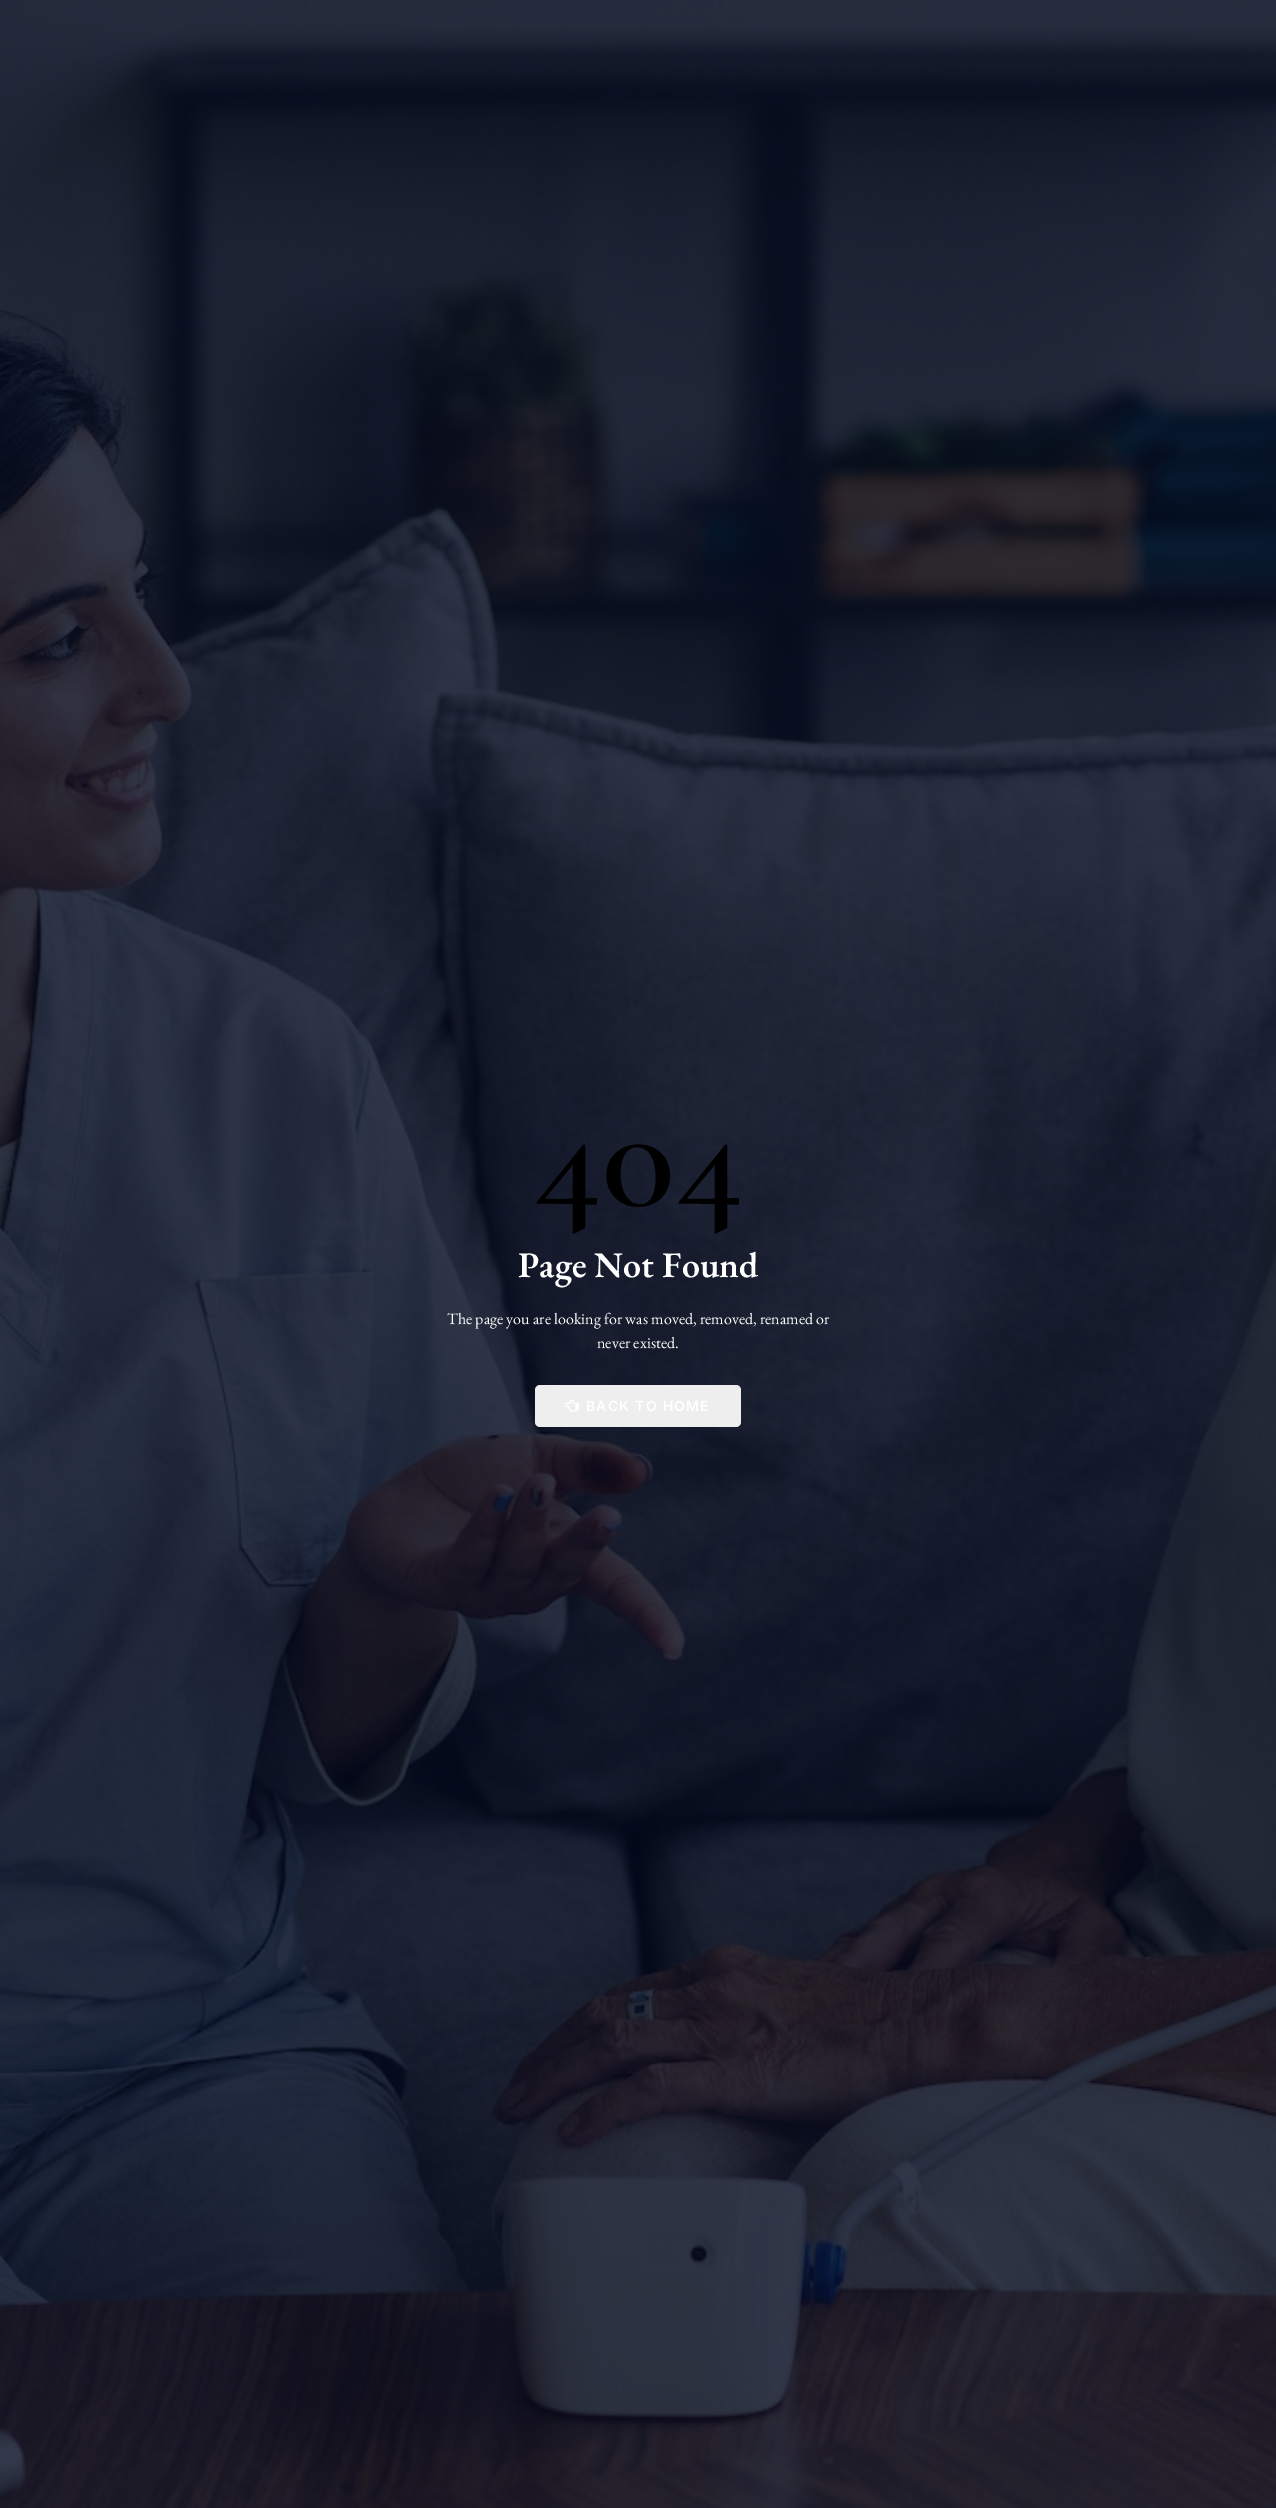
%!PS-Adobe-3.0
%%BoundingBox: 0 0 1276 2508
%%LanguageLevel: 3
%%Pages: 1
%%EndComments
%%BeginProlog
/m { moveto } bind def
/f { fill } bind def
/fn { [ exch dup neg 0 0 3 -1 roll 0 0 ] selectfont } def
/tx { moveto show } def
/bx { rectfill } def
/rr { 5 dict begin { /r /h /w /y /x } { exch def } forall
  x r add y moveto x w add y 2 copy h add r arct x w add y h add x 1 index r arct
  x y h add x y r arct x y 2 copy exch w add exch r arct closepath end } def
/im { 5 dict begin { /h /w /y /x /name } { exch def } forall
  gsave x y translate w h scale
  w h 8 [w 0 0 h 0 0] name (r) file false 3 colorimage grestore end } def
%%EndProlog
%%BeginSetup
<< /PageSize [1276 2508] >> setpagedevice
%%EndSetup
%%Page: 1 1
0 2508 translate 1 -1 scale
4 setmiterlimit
1 setgray
0 0 1276 2508 bx
(image0.raw) 0 0 1276 2508 im
/CormorantGaramond-SemiBold 152 fn
0 setgray
(404) 533 1205 tx
/EBGaramond-SemiBold 36 fn
1 setgray
(Page Not Found) 518 1277 tx
/EBGaramond-Regular 16 fn
(The page you are looking for was moved, removed, renamed or) 447 1324 tx
(never existed.) 597 1348 tx
0.933 setgray
535 1385 206 42 5 rr f
(image1.raw) 565 1399 14 13 im
/Inter-SemiBold 14 fn
1 setgray
586 1411 m 1.25 0 (BACK TO HOME) ashow
showpage
%%EOF
